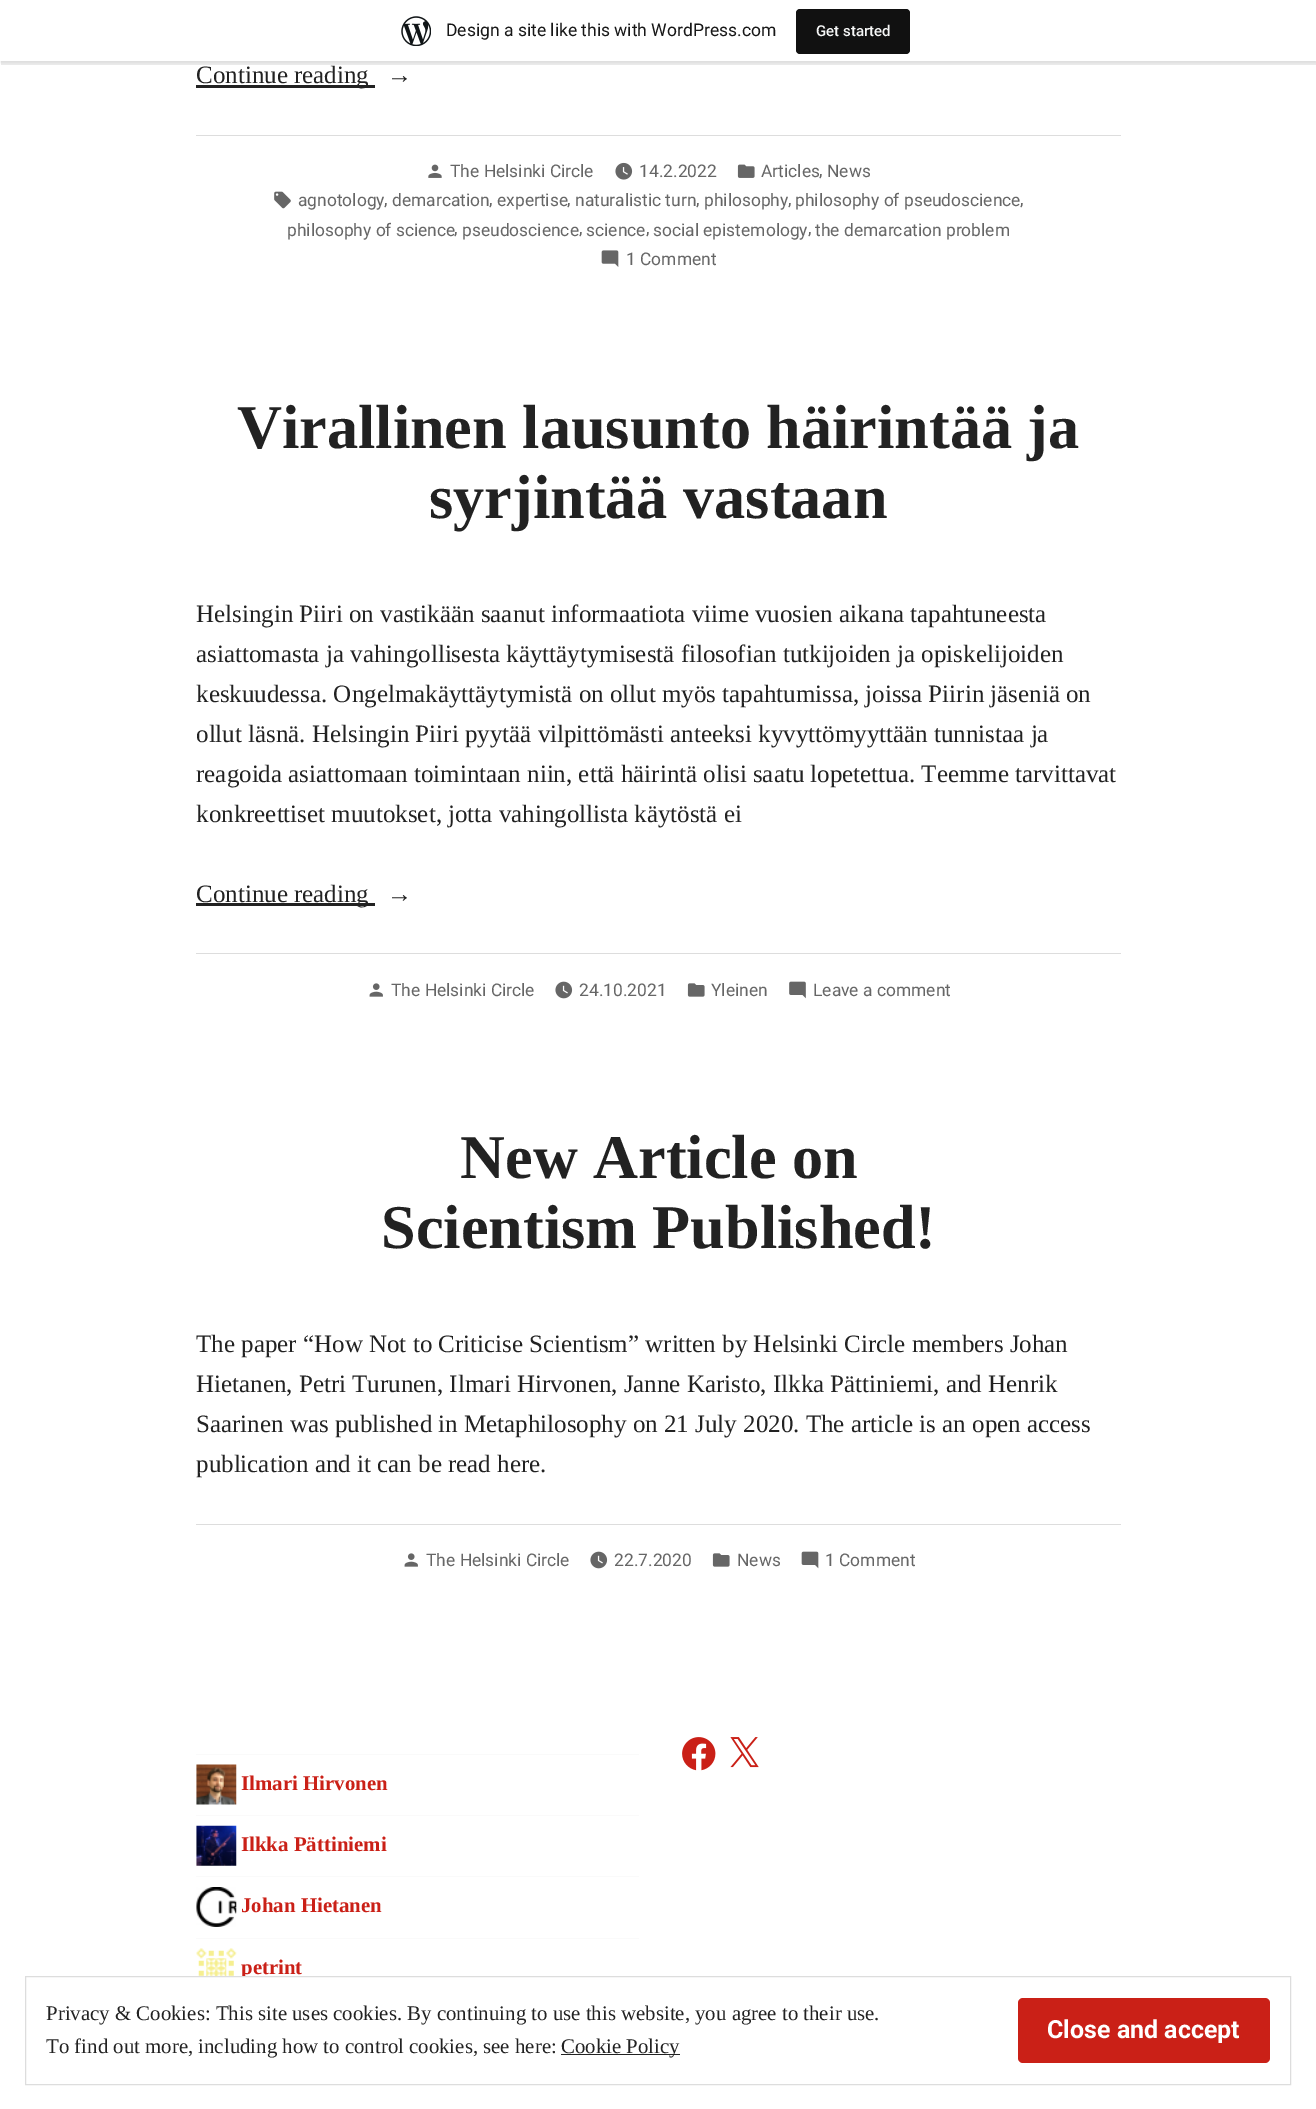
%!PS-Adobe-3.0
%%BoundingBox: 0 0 1316 2109
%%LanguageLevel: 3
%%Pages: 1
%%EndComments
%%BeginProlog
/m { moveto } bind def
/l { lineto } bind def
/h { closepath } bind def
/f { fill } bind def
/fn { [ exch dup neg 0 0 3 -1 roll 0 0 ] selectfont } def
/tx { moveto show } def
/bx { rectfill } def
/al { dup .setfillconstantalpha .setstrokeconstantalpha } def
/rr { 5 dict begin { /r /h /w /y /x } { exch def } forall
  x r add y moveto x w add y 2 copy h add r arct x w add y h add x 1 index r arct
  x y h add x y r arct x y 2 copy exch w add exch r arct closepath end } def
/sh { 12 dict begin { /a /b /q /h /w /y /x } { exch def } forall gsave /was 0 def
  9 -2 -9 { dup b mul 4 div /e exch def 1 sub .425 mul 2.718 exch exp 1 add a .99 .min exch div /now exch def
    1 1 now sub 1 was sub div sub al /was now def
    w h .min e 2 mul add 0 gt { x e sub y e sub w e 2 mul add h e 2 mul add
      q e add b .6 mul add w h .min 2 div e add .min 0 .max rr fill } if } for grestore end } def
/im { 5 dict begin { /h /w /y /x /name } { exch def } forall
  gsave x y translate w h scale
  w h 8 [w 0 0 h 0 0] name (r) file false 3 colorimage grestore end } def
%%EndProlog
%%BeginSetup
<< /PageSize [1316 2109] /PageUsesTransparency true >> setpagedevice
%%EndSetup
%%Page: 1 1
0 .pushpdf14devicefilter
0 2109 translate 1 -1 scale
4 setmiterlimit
1 setgray
0 0 1316 2109 bx
0 setgray
0 1 1316 62 0 1 0.05 sh
0.08 al
1 61 m 1 65 l 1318 65 l 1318 4 l 1316 4 l 1316 61 l h f
1 al
1 setgray
0 0 1316 61 bx
(image0.raw) 401 16 30 30 im
/Roboto-Regular 17.5 fn
0.09 setgray
(Design a site like this with WordPress.com) 446 36 tx
0.067 setgray
796 9 114 45 4 rr f
/Roboto-Medium 15 fn
0.965 0.969 0.969 setrgbcolor
(Get started) 816 36 tx
0.133 setgray
196 85 179 3 bx
/LiberationSerif-Regular 25 fn
(Continue reading) 196 83 tx
(→) 387 83 tx
0.867 setgray
196 135 925 1 bx
(image1.raw) 428 164 14 14 im
/Roboto-Regular 17.4 fn
0.4 setgray
(The Helsinki Circle) 450 177 tx
(image2.raw) 615 162 18 18 im
(14.2.2022) 639 177 tx
(image3.raw) 737 164 18 14 im
(Articles) 761 177 tx
(,) 819 176 tx
(News) 827 177 tx
(image4.raw) 274 191 17 18 im
(agnotology) 298 206 tx
(,) 384 205 tx
(demarcation) 392 206 tx
(,) 489 205 tx
(expertise) 497 206 tx
(,) 567 205 tx
(naturalistic turn) 575 206 tx
(,) 696 205 tx
(philosophy) 704 206 tx
(,) 788 205 tx
(philosophy of pseudoscience) 795 206 tx
(,) 1020 205 tx
(philosophy of science) 287 236 tx
(,) 454 234 tx
(pseudoscience) 462 236 tx
(,) 579 234 tx
(science) 586 236 tx
(,) 646 234 tx
(social epistemology) 653 236 tx
(,) 808 234 tx
(the demarcation problem) 815 236 tx
(image5.raw) 601 250 18 17 im
(1 Comment) 626 265 tx
/LiberationSerif-Bold 62.25 fn
0.133 setgray
(Virallinen lausunto häirintää ja) 237 448 tx
(syrjintää vastaan) 429 518 tx
/LiberationSerif-Regular 25 fn
(Helsingin Piiri on vastikään saanut informaatiota viime vuosien aikana tapahtuneesta) 196 622 tx
(asiattomasta ja vahingollisesta käyttäytymisestä filosofian tutkijoiden ja opiskelijoiden) 196 662 tx
(keskuudessa. Ongelmakäyttäytymistä on ollut myös tapahtumissa, joissa Piirin jäseniä on) 196 702 tx
(ollut läsnä. Helsingin Piiri pyytää vilpittömästi anteeksi kyvyttömyyttään tunnistaa ja) 196 742 tx
(reagoida asiattomaan toimintaan niin, että häirintä olisi saatu lopetettua. Teemme tarvittavat) 196 782 tx
(konkreettiset muutokset, jotta vahingollista käytöstä ei) 196 822 tx
196 903 179 3 bx
(Continue reading) 196 902 tx
(→) 387 902 tx
0.867 setgray
196 953 925 1 bx
(image6.raw) 369 983 14 14 im
/Roboto-Regular 17.4 fn
0.4 setgray
(The Helsinki Circle) 391 996 tx
(image7.raw) 555 981 18 18 im
(24.10.2021) 579 996 tx
(image8.raw) 687 983 18 14 im
(Yleinen) 711 996 tx
(image9.raw) 789 981 17 18 im
(Leave a comment) 813 996 tx
/LiberationSerif-Bold 62.25 fn
0.133 setgray
(New Article on) 460 1178 tx
(Scientism Published!) 381 1248 tx
/LiberationSerif-Regular 25 fn
(The paper “How Not to Criticise Scientism” written by Helsinki Circle members Johan) 196 1352 tx
(Hietanen, Petri Turunen, Ilmari Hirvonen, Janne Karisto, Ilkka Pättiniemi, and Henrik) 196 1392 tx
(Saarinen was published in Metaphilosophy on 21 July 2020. The article is an open access) 196 1432 tx
(publication and it can be read here.) 196 1472 tx
0.867 setgray
196 1524 925 1 bx
(image6.raw) 404 1553 14 14 im
/Roboto-Regular 17.4 fn
0.4 setgray
(The Helsinki Circle) 426 1566 tx
(image7.raw) 590 1551 18 18 im
(22.7.2020) 614 1566 tx
(image8.raw) 712 1553 18 14 im
(News) 737 1566 tx
(image10.raw) 801 1551 18 18 im
(1 Comment) 825 1566 tx
(image11.raw) 682 1737 34 34 im
(image12.raw) 730 1737 29 31 im
0.98 setgray
196 1754 443 1 bx
(image13.raw) 196 1764 41 41 im
/LiberationSerif-Bold 20.85 fn
0.792 0.125 0.09 setrgbcolor
(Ilmari Hirvonen) 241 1790 tx
0.98 setgray
196 1815 443 1 bx
(image14.raw) 196 1825 41 41 im
0.792 0.125 0.09 setrgbcolor
(Ilkka Pättiniemi) 241 1851 tx
0.98 setgray
196 1876 443 1 bx
(image15.raw) 196 1887 41 40 im
0.792 0.125 0.09 setrgbcolor
(Johan Hietanen) 241 1912 tx
0.98 setgray
196 1938 443 1 bx
(image16.raw) 196 1948 41 28 im
0.792 0.125 0.09 setrgbcolor
(petrint) 241 1974 tx
1 setgray
241 1977 6 2 bx
0.867 setgray
25.5 1976.5 1265 108 rectstroke
/LiberationSerif-Regular 20.85 fn
0.133 setgray
(Privacy & Cookies: This site uses cookies. By continuing to use this website, you agree to their use.) 46 2020 tx
0.792 0.125 0.09 setrgbcolor
1018 1998 252 65 5 rr f
/Roboto-Bold 25 fn
1 setgray
(Close and accept) 1047 2038 tx
/LiberationSerif-Regular 20.85 fn
0.133 setgray
(To find out more, including how to control cookies, see here:) 46 2053 tx
561 2054 119 1 bx
(Cookie Policy) 561 2053 tx
.poppdf14devicefilter showpage
%%EOF
